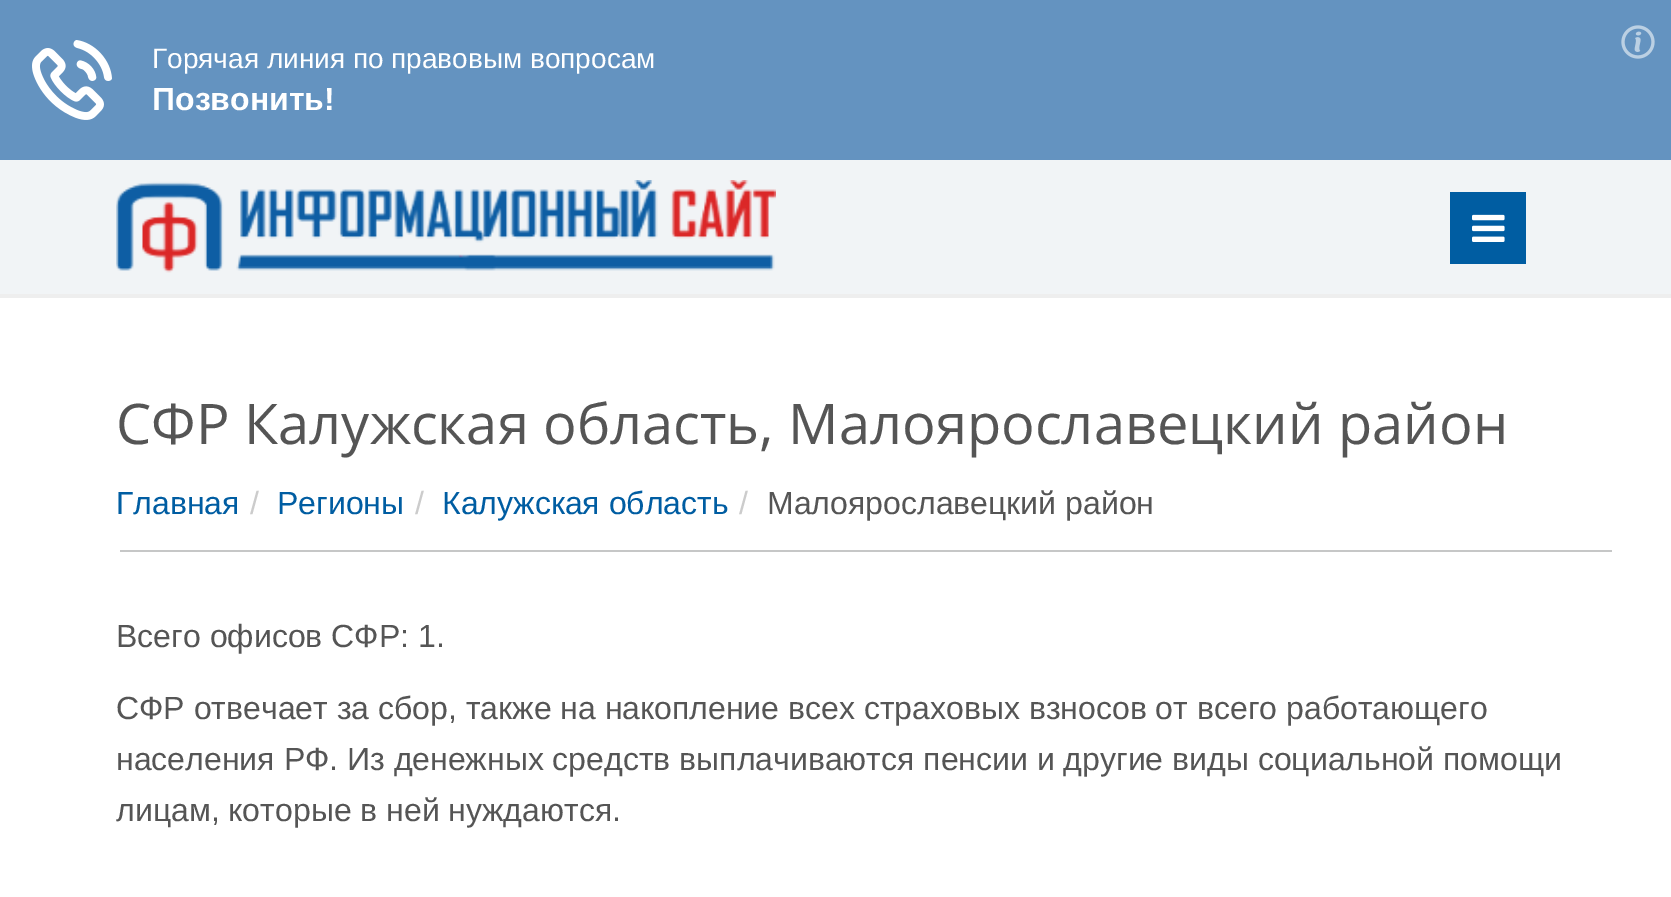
%!PS-Adobe-3.0
%%BoundingBox: 0 0 1671 897
%%LanguageLevel: 3
%%Pages: 1
%%EndComments
%%BeginProlog
/fn { [ exch dup neg 0 0 3 -1 roll 0 0 ] selectfont } def
/tx { moveto show } def
/bx { rectfill } def
/im { 5 dict begin { /h /w /y /x /name } { exch def } forall
  gsave x y translate w h scale
  w h 8 [w 0 0 h 0 0] name (r) file false 3 colorimage grestore end } def
%%EndProlog
%%BeginSetup
<< /PageSize [1671 897] >> setpagedevice
%%EndSetup
%%Page: 1 1
0 897 translate 1 -1 scale
4 setmiterlimit
1 setgray
0 0 1671 897 bx
0.392 0.576 0.753 setrgbcolor
0 0 1671 160 bx
(image0.raw) 1621 25 34 34 im
(image1.raw) 32 40 80 80 im
/LiberationSans-Regular 28 fn
1 setgray
(Горячая линия по правовым вопросам) 152 68 tx
/LiberationSans-Bold 32 fn
(Позвонить!) 152 110 tx
0.945 0.957 0.965 setrgbcolor
0 160 1671 134 bx
0.933 setgray
0 294 1671 4 bx
(image2.raw) 116 180 660 93 im
0 0.365 0.635 setrgbcolor
1450 192 76 72 bx
(image3.raw) 1472 214 33 28 im
/OpenSans-Regular 56 fn
0.333 setgray
(СФР Калужская область, Малоярославецкий район) 116 444 tx
0.776 0.78 0.78 setrgbcolor
120 550 1492 2 bx
/LiberationSans-Regular 32 fn
0 0.365 0.635 setrgbcolor
(Главная) 116 514 tx
0.8 setgray
(/) 250 514 tx
0 0.365 0.635 setrgbcolor
(Регионы) 277 514 tx
0.8 setgray
(/) 415 514 tx
0 0.365 0.635 setrgbcolor
(Калужская область) 442 514 tx
0.8 setgray
(/) 739 514 tx
0.333 setgray
(Малоярославецкий район) 767 514 tx
(Всего офисов СФР: 1.) 116 647 tx
(СФР отвечает за сбор, также на накопление всех страховых взносов от всего работающего) 116 719 tx
(населения РФ. Из денежных средств выплачиваются пенсии и другие виды социальной помощи) 116 770 tx
(лицам, которые в ней нуждаются.) 116 821 tx
showpage
%%EOF
